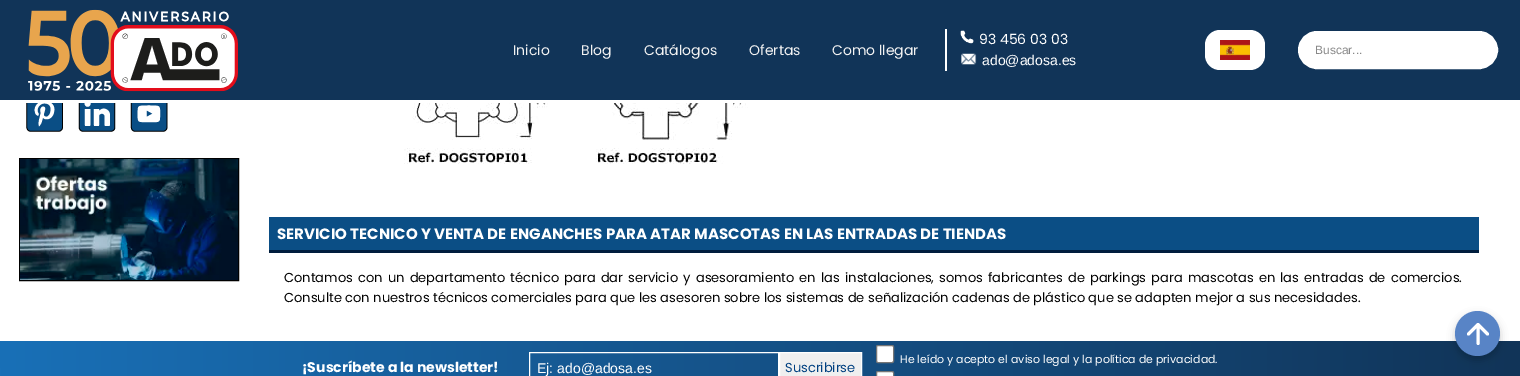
%!PS-Adobe-3.0
%%BoundingBox: 0 0 1520 376
%%LanguageLevel: 3
%%Pages: 1
%%EndComments
%%BeginProlog
/m { moveto } bind def
/l { lineto } bind def
/h { closepath } bind def
/f { fill } bind def
/S { stroke } bind def
/q { gsave } bind def
/Q { grestore } bind def
/w { setlinewidth } bind def
/fn { [ exch dup neg 0 0 3 -1 roll 0 0 ] selectfont } def
/tx { moveto show } def
/bx { rectfill } def
/al { dup .setfillconstantalpha .setstrokeconstantalpha } def
/ci { newpath 0 360 arc closepath } def
/rr { 5 dict begin { /r /h /w /y /x } { exch def } forall
  x r add y moveto x w add y 2 copy h add r arct x w add y h add x 1 index r arct
  x y h add x y r arct x y 2 copy exch w add exch r arct closepath end } def
/sh { 12 dict begin { /a /b /q /h /w /y /x } { exch def } forall gsave /was 0 def
  9 -2 -9 { dup b mul 4 div /e exch def 1 sub .425 mul 2.718 exch exp 1 add a .99 .min exch div /now exch def
    1 1 now sub 1 was sub div sub al /was now def
    w h .min e 2 mul add 0 gt { x e sub y e sub w e 2 mul add h e 2 mul add
      q e add b .6 mul add w h .min 2 div e add .min 0 .max rr fill } if } for grestore end } def
/im { 5 dict begin { /h /w /y /x /name } { exch def } forall
  gsave x y translate w h scale
  w h 8 [w 0 0 h 0 0] name (r) file false 3 colorimage grestore end } def
%%EndProlog
%%BeginSetup
<< /PageSize [1520 376] /PageUsesTransparency true >> setpagedevice
%%EndSetup
%%Page: 1 1
0 .pushpdf14devicefilter
0 376 translate 1 -1 scale
4 setmiterlimit
1 setgray
0 0 1520 376 bx
0.067 0.204 0.345 setrgbcolor
0 0 1520 100 bx
(image0.raw) 28 9 210 83 im
/Poppins-Regular 14 fn
0.949 setgray
(Inicio) 513 55 tx
(Blog) 581 55 tx
(Catálogos) 644 55 tx
(Ofertas) 749 55 tx
(Como llegar) 832 55 tx
1 setgray
945 29 2 42 bx
(image1.raw) 960 30 14 14 im
(93 456 03 03) 979 44 tx
(image2.raw) 961 53 16 12 im
/LiberationSans-Regular 14 fn
(ado@adosa.es) 982 65 tx
1205 30 60 40 15 rr f
(image3.raw) 1220 40 30 20 im
1299 32 198 36 18 rr q f Q
2 w
S
/LiberationSans-Regular 12 fn
0.533 setgray
(Buscar...) 1315 54 tx
(image4.raw) 26 103 142 29 im
0 setgray
1 w
19.5 158.5 219 122 rectstroke
(image5.raw) 20 159 218 121 im
(image6.raw) 404 103 344 61 im
0.043 0.306 0.522 setrgbcolor
269 217 1210 33 bx
0 0.114 0.239 setrgbcolor
269 250 1210 3 bx
/Poppins-Bold 15 fn
1 setgray
(SERVICIO TECNICO Y VENTA DE ENGANCHES PARA ATAR MASCOTAS EN LAS ENTRADAS DE TIENDAS) 277 239 tx
/Poppins-Regular 13 fn
0 setgray
284 282 m 1.8 0 32 (Contamos con un departamento técnico para dar servicio y asesoramiento en las instalaciones, somos fabricantes de parkings para mascotas en las entradas de comercios.) widthshow
(Consulte con nuestros técnicos comerciales para que les asesoren sobre los sistemas de señalización cadenas de plástico que se adapten mejor a sus necesidades.) 284 302 tx
q 0 341 m 1520 341 l 1520 376 l 0 376 l h clip newpath
<< /ShadingType 2 /ColorSpace /DeviceRGB /Coords [0 368 1520 367] /Extend [true true] /Function << /FunctionType 2 /Domain [0 1] /C0 [0.098 0.439 0.718] /C1 [0.067 0.204 0.345] /N 1 >> >> shfill Q
/Poppins-Bold 14 fn
1 setgray
(¡Suscríbete a la newsletter!) 302 372 tx
529.5 352.5 249 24 rectstroke
/LiberationSans-Regular 14 fn
(Ej: ado@adosa.es) 537 373 tx
0.937 setgray
779.5 352.5 m 861.5 352.5 l 861.5 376.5 l 779.5 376.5 l h q f Q
1 setgray
S
/Poppins-Regular 13 fn
0 0.251 0.502 setrgbcolor
(Suscribirse) 785 372 tx
1 setgray
876.5 345.5 17 17 1.5 rr q f Q
0.463 setgray
S
/Poppins-Regular 11 fn
1 setgray
(He leído y acepto el aviso legal y la política de privacidad.) 900 363 tx
876.5 371.5 17 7 1.5 rr q f Q
0.463 setgray
S
0 setgray
1455 315 45 45 22.5 4 0.2 sh
0.345 0.518 0.776 setrgbcolor
1477.5 333.5 22.5 ci f
1 setgray
3 w
1 setlinecap
1 setlinejoin
1478 343.5 m 1478 324.5 l 1478 324.5 m 1468.5 334 l 1478 324.5 m 1487.5 334 l S
.poppdf14devicefilter showpage
%%EOF
